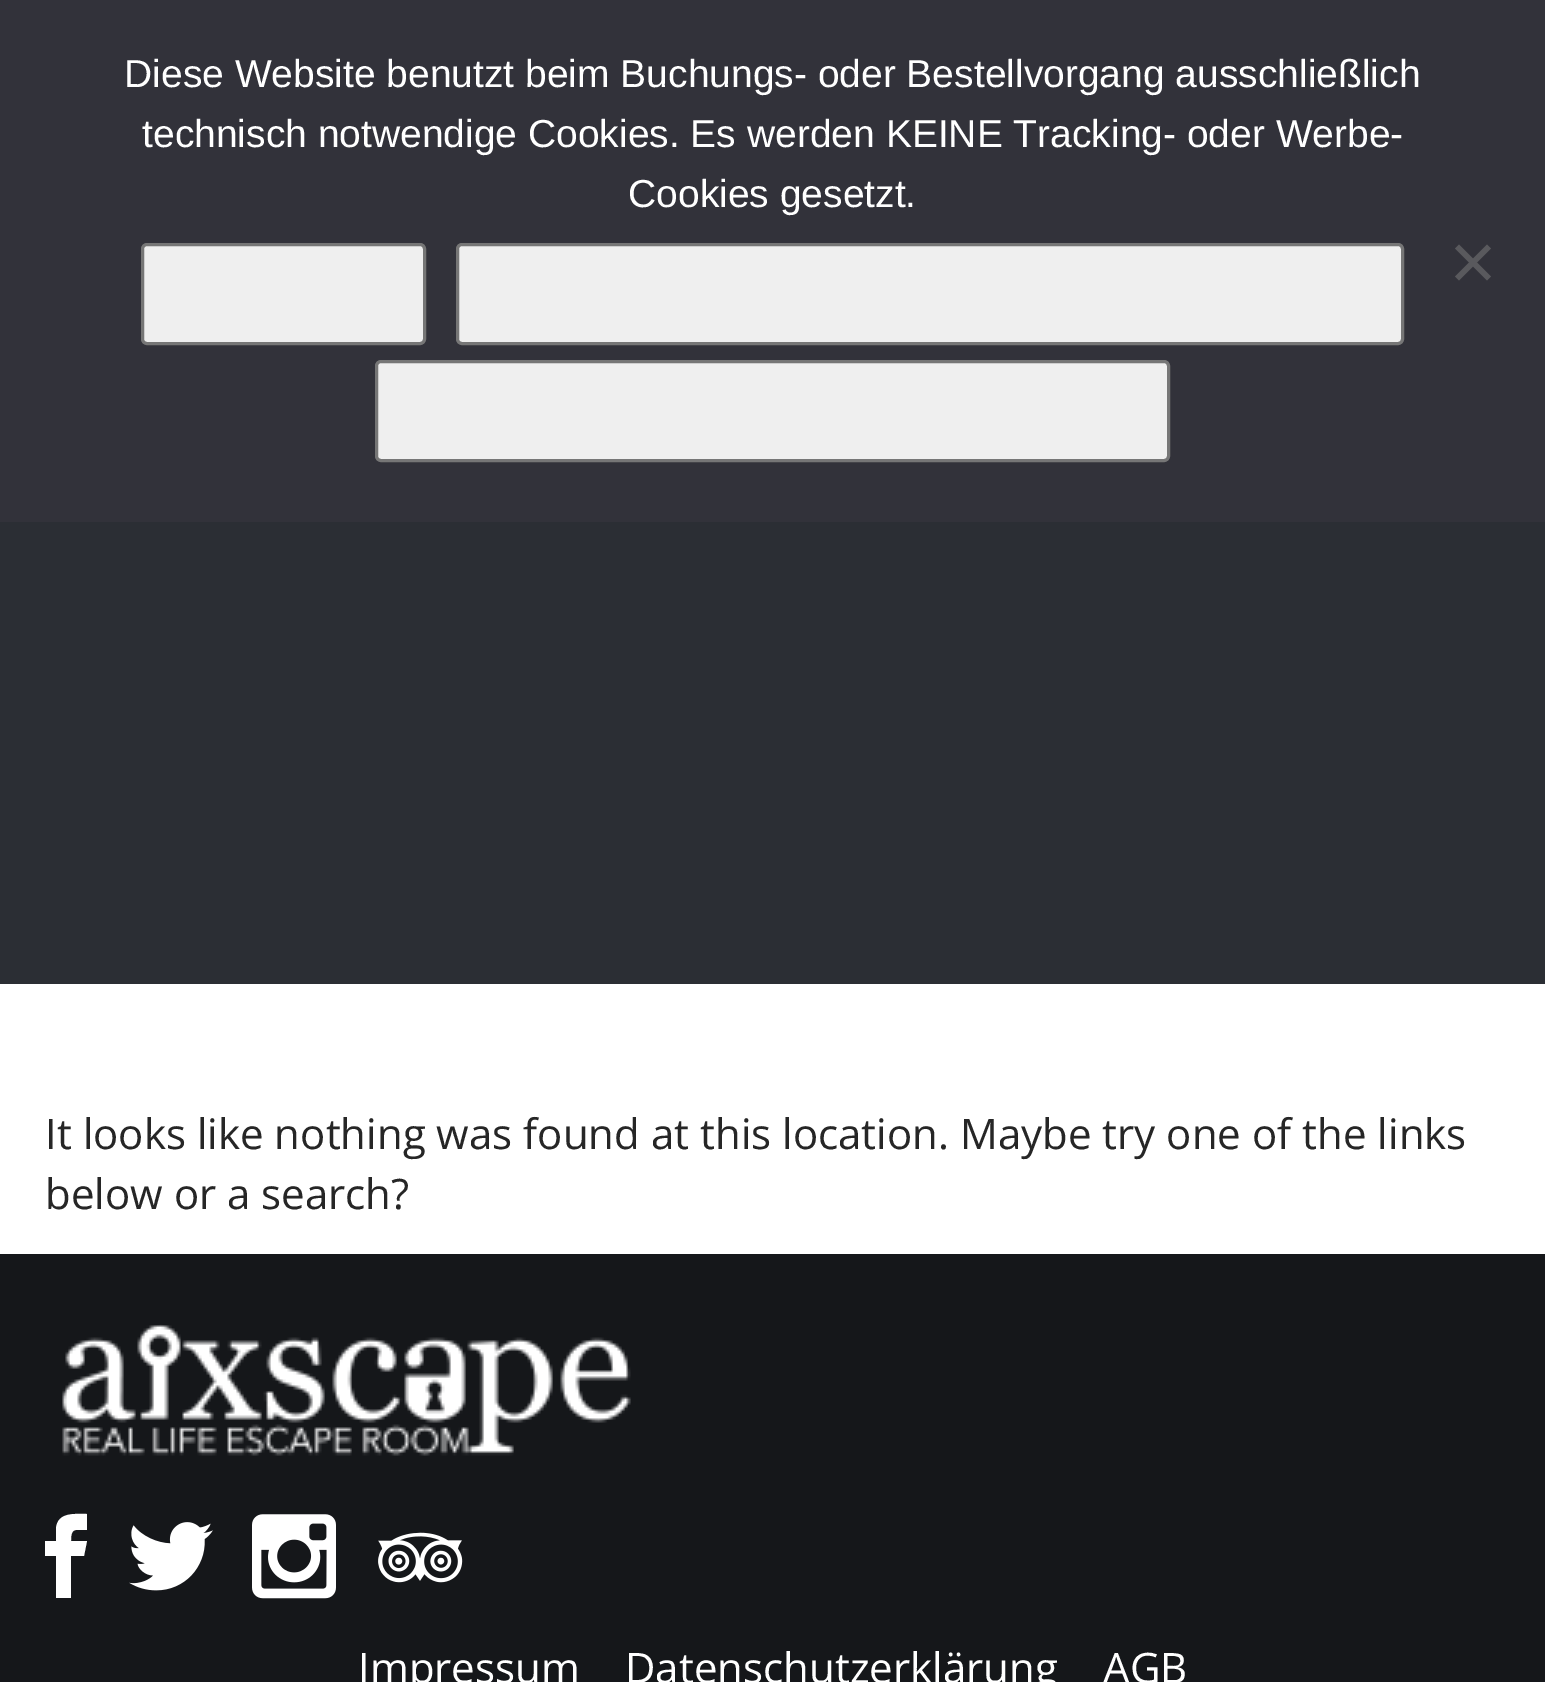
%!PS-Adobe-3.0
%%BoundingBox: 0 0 1545 1682
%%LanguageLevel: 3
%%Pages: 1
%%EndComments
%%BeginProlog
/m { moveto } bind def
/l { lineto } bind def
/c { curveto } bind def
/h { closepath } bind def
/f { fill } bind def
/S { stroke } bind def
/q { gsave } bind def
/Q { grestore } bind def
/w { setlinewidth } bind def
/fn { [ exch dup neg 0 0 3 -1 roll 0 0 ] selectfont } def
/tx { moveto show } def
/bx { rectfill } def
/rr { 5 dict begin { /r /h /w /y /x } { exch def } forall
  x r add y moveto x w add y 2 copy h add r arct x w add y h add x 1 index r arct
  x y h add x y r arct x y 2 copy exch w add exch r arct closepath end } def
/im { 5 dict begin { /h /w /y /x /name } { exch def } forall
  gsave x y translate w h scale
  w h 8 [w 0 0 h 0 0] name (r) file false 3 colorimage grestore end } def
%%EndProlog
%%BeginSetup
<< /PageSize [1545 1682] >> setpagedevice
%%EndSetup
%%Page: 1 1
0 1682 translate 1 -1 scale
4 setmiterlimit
1 setgray
0 0 1545 1682 bx
0.196 0.196 0.227 setrgbcolor
0 0 1545 522 bx
/LiberationSans-Regular 39 fn
1 setgray
(Diese Website benutzt beim Buchungs- oder Bestellvorgang ausschließlich) 124 87 tx
(technisch notwendige Cookies. Es werden KEINE Tracking- oder Werbe-) 142 147 tx
(Cookies gesetzt.) 628 207 tx
0.937 setgray
142.5 244.5 282 99 4.5 rr q f Q
0.463 setgray
3 w
S
0.937 setgray
457.5 244.5 945 99 4.5 rr q f Q
0.463 setgray
S
0.937 setgray
376.5 361.5 792 99 4.5 rr q f Q
0.463 setgray
S
0.349 0.349 0.365 setrgbcolor
1487 244.5 m 1491 248.5 l 1459 280.5 l 1455 276.5 l h f
1455 248.5 m 1459 244.5 l 1491 276.5 l 1487 280.5 l h f
0.169 0.18 0.204 setrgbcolor
0 522 1545 462 bx
/OpenSans-Regular 42 fn
0.149 setgray
(It looks like nothing was found at this location. Maybe try one of the links) 45 1149 tx
(below or a search?) 45 1209 tx
0.082 0.09 0.102 setrgbcolor
0 1254 1545 428 bx
(image0.raw) 62 1324 569 132 im
1 setgray
76 1530 m 87 1530 l 87 1514 l 74 1514 58 1512 56 1528 c 56 1541 l 45 1541 l 45 1556 l 56 1556 l 56 1598 l 71 1598 l 71 1556 l 84 1556 l 87 1541 l 71 1541 l 71 1537 71 1530 76 1530 c h f
(image1.raw) 129 1522 84 69 im
(image2.raw) 252 1514 84 85 im
(image3.raw) 378 1532 85 51 im
(Impressum) 358 1683 tx
(Datenschutzerklärung) 625 1683 tx
(AGB) 1103 1683 tx
showpage
%%EOF
